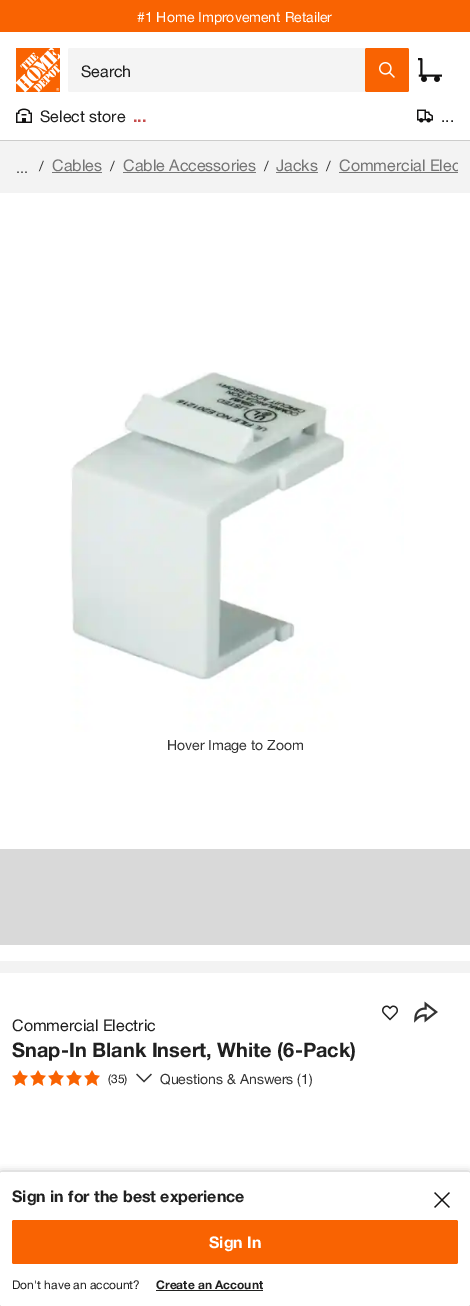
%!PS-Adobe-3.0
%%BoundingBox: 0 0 470 1306
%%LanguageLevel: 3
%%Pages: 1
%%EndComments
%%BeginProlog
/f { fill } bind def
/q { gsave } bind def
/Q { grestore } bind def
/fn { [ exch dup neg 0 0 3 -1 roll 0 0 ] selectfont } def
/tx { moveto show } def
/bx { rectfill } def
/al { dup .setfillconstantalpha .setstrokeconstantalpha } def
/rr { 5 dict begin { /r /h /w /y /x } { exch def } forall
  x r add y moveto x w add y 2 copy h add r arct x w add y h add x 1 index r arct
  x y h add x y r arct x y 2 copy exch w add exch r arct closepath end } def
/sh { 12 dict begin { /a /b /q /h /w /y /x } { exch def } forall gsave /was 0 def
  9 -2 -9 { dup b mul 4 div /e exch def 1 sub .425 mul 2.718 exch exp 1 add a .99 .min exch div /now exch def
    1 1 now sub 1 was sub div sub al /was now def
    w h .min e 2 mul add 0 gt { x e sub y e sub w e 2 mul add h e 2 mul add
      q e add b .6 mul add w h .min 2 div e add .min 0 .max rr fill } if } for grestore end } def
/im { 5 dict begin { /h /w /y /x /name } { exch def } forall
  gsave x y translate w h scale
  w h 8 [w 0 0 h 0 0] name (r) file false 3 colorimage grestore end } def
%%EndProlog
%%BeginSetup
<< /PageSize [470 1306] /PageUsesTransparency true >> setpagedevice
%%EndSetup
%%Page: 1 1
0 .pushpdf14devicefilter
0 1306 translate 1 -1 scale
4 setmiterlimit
1 setgray
0 0 470 1306 bx
0.976 0.388 0.008 setrgbcolor
0 0 470 32 bx
/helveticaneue-Regular 14 fn
1 setgray
(#1 Home Improvement Retailer) 137 22 tx
0.8 0.8 0.796 setrgbcolor
0 140 470 1 bx
(image0.raw) 16 48 44 44 im
0.957 setgray
68 48 341 44 2 rr f
/helveticaneue-Regular 16 fn
0.125 setgray
(Search) 81 77 tx
0.976 0.388 0.008 setrgbcolor
365 48 44 44 2 rr f
(image1.raw) 379 62 16 16 im
(image2.raw) 418 58 24 24 im
(image3.raw) 16 108 16 15 im
0.125 setgray
(Select store) 40 122 tx
/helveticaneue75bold-Bold 16 fn
0.776 0.298 0.298 setrgbcolor
(...) 133 122 tx
(image4.raw) 417 109 16 14 im
/helveticaneue-Regular 16 fn
0.125 setgray
(...) 441 122 tx
0 setgray
0 1173 470 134 2 4 0.38 sh
1 setgray
0 1172 470 134 2 rr f
/helveticaneue75bold-Bold 16 fn
0.125 setgray
(Sign in for the best experience) 12 1202 tx
(image5.raw) 434 1192 16 16 im
0.976 0.388 0.008 setrgbcolor
12 1220 446 44 2 rr f
1 setgray
(Sign In) 209 1248 tx
/helveticaneue-Regular 12 fn
0.125 setgray
(Don't have an account?) 12 1289 tx
/helveticaneue75bold-Bold 12 fn
(Create an Account) 156 1289 tx
0.129 0.129 0.125 setrgbcolor
156 1290 107 1 bx
0.953 setgray
0 141 470 832 bx
/helveticaneue-Regular 14 fn
0.2 setgray
(...) 16 173 tx
(/) 39 171 tx
/helveticaneue-Regular 16 fn
0.459 setgray
(Cables) 52 171 tx
52 172 50 1 bx
/helveticaneue-Regular 14 fn
0.2 setgray
(/) 110 171 tx
/helveticaneue-Regular 16 fn
0.459 setgray
(Cable Accessories) 123 171 tx
123 172 133 1 bx
/helveticaneue-Regular 14 fn
0.2 setgray
(/) 264 171 tx
/helveticaneue-Regular 16 fn
0.459 setgray
(Jacks) 276 171 tx
276 172 42 1 bx
/helveticaneue-Regular 14 fn
0.2 setgray
(/) 326 171 tx
q
31 153 427 28 rectclip
/helveticaneue-Regular 16 fn
0.459 setgray
(Commercial Elec) 339 171 tx
Q
0.459 setgray
339 172 119 1 bx
1 setgray
0 193 470 768 bx
(image6.raw) 69 372 335 360 im
0.2 setgray
(Hover Image to Zoom) 167 750 tx
0.851 setgray
0 849 470 96 bx
(image7.raw) 382 1005 16 16 im
(image8.raw) 414 1001 24 22 im
/helveticaneue-Regular 16 fn
0.125 setgray
(Commercial Electric) 12 1031 tx
/helveticaneue75bold-Bold 20 fn
(Snap-In Blank Insert, White \(6-Pack\)) 12 1057 tx
(image9.raw) 12 1070 16 16 im
(image9.raw) 30 1070 16 16 im
(image9.raw) 48 1070 16 16 im
(image9.raw) 66 1070 16 16 im
(image9.raw) 84 1070 16 16 im
/helveticaneue-Regular 12 fn
(\(35\)) 108 1083 tx
(image10.raw) 136 1073 16 10 im
/helveticaneue-Regular 14 fn
0.2 setgray
(Questions & Answers \(1\)) 160 1084 tx
.poppdf14devicefilter showpage
%%EOF
